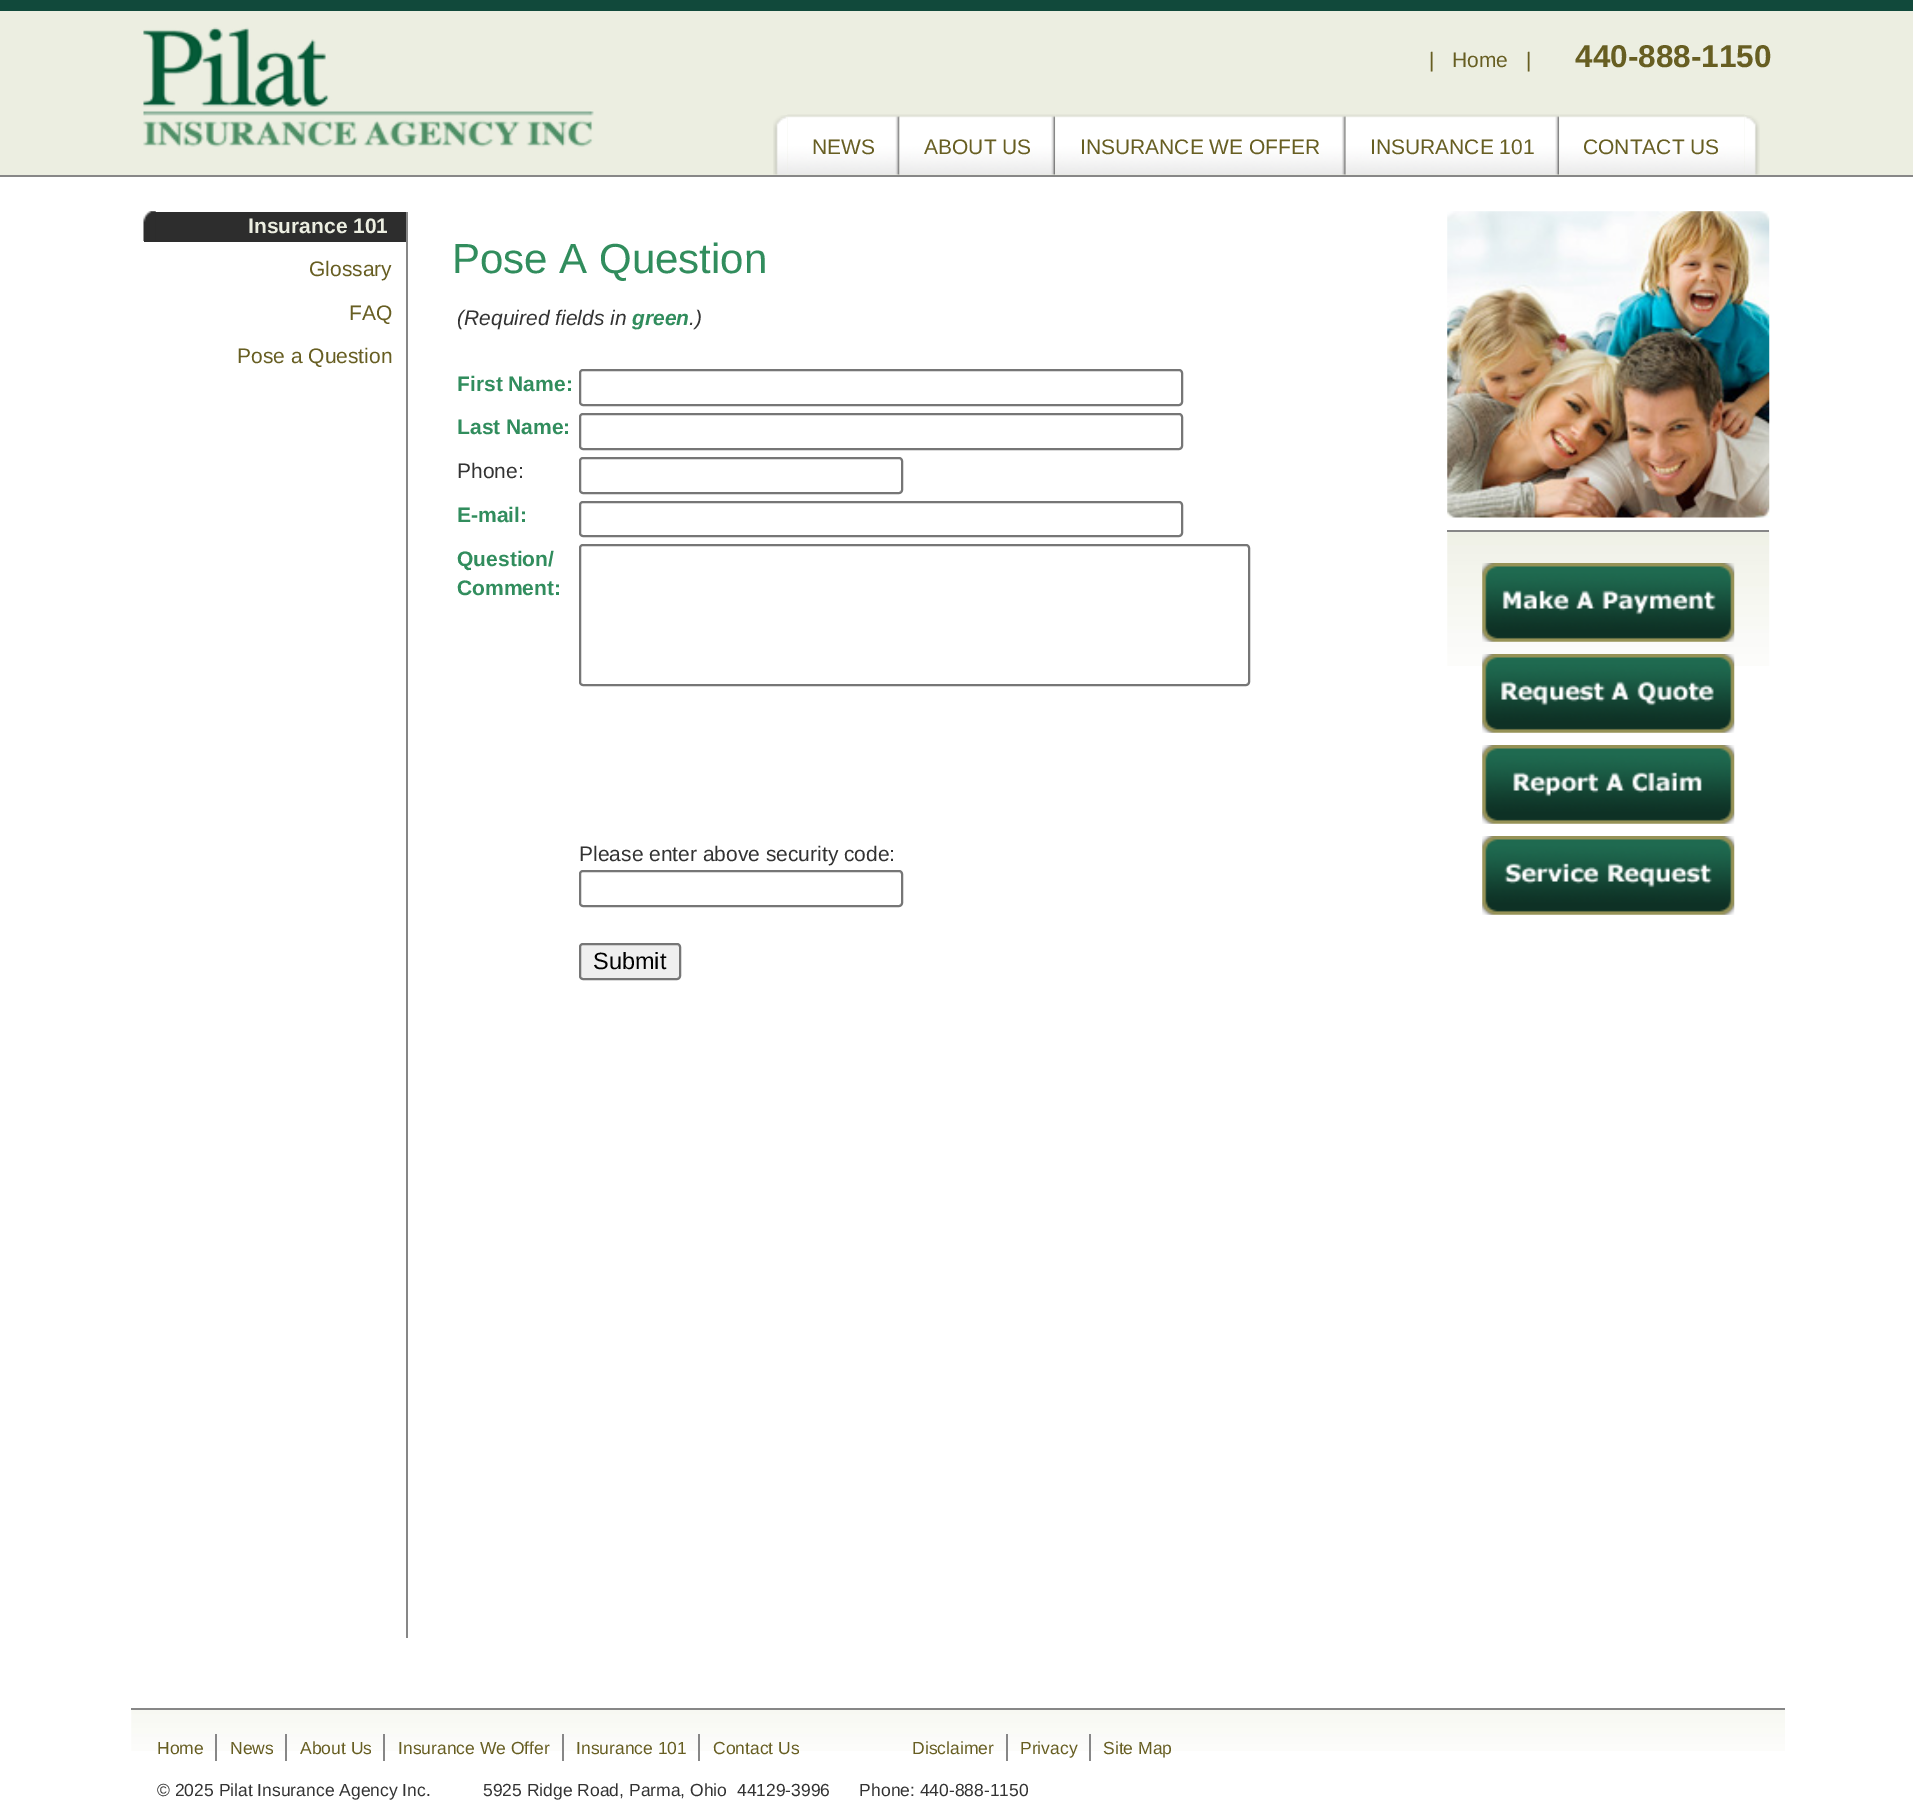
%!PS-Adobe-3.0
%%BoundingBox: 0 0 1913 1805
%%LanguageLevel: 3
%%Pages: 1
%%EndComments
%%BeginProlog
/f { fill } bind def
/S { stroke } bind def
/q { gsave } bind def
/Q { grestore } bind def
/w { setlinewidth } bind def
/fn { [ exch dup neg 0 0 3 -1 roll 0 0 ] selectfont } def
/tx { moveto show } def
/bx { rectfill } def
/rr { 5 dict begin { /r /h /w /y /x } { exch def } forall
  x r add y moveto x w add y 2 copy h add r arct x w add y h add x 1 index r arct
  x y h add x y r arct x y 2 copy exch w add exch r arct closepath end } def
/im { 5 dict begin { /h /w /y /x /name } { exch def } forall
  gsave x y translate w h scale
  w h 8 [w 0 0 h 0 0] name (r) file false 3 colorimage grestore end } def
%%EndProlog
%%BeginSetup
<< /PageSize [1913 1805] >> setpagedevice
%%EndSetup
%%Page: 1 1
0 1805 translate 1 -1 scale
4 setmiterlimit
1 setgray
0 0 1913 1805 bx
0.067 0.286 0.231 setrgbcolor
0 0 1913 11 bx
0.925 0.933 0.882 setrgbcolor
0 11 1913 164 bx
0.529 setgray
0 175 1913 2 bx
(image0.raw) 143 27 451 120 im
/LiberationSans-Regular 21 fn
0.404 0.369 0.133 setrgbcolor
(|) 1429 67 tx
(Home) 1452 67 tx
(|) 1526 67 tx
/LiberationSans-Bold 31.5 fn
(440-888-1150) 1575 67 tx
(image1.raw) 773 115 15 60 im
(image2.raw) 787 114 113 61 im
/LiberationSans-Regular 21 fn
(NEWS) 812 154 tx
(image3.raw) 899 114 156 61 im
(ABOUT US) 924 154 tx
(image4.raw) 1055 114 291 61 im
(INSURANCE WE OFFER) 1080 154 tx
(image5.raw) 1345 114 214 61 im
(INSURANCE 101) 1370 154 tx
(image6.raw) 1559 114 186 61 im
(CONTACT US) 1583 154 tx
(image7.raw) 1745 115 15 60 im
0.176 setgray
144 212 262 30 bx
(image8.raw) 143 211 13 30 im
/LiberationSans-Bold 21 fn
0.925 0.933 0.882 setrgbcolor
(Insurance 101) 248 233 tx
/LiberationSans-Regular 21 fn
0.404 0.369 0.133 setrgbcolor
(Glossary) 309 276 tx
(FAQ) 349 320 tx
(Pose a Question) 237 363 tx
0.529 setgray
406 212 2 1426 bx
/LiberationSans-Regular 42 fn
0.192 0.553 0.365 setrgbcolor
(Pose A Question) 452 273 tx
/LiberationSans-Italic 21 fn
0.2 setgray
(\(Required fields in) 457 325 tx
/LiberationSans-BoldItalic 21 fn
0.192 0.553 0.365 setrgbcolor
(green) 632 325 tx
/LiberationSans-Italic 21 fn
0.2 setgray
(.\)) 689 325 tx
/LiberationSans-Bold 21 fn
0.192 0.553 0.365 setrgbcolor
(First Name:) 457 391 tx
0.463 setgray
2 w
580 370 602 35 3 rr S
0.192 0.553 0.365 setrgbcolor
(Last Name:) 457 434 tx
0.463 setgray
580 414 602 35 3 rr S
/LiberationSans-Regular 21 fn
0.2 setgray
(Phone:) 457 478 tx
0.463 setgray
580 458 322 35 3 rr S
/LiberationSans-Bold 21 fn
0.192 0.553 0.365 setrgbcolor
(E-mail:) 457 522 tx
0.463 setgray
580 502 602 34 3 rr S
0.192 0.553 0.365 setrgbcolor
(Question/) 457 566 tx
(Comment:) 457 595 tx
0.463 setgray
580 545 669 140 3 rr S
/LiberationSans-Regular 21 fn
0.2 setgray
(Please enter above security code:) 579 861 tx
0.463 setgray
580 871 322 35 3 rr S
0.937 setgray
580 944 100 35 3 rr q f Q
0.463 setgray
S
/LiberationSans-Regular 23.5 fn
0 setgray
(Submit) 593 969 tx
(image9.raw) 1447 211 323 307 im
(image10.raw) 1447 531 323 135 im
0.529 setgray
1447 530 322 2 bx
(image11.raw) 1482 563 253 79 im
(image12.raw) 1482 654 253 79 im
(image13.raw) 1482 745 253 79 im
(image14.raw) 1482 836 253 79 im
(image15.raw) 131 1710 1654 41 im
131 1708 1654 2 bx
215 1734 2 27 bx
/LiberationSans-Regular 17.5 fn
0.404 0.369 0.133 setrgbcolor
(Home) 157 1754 tx
0.529 setgray
285 1734 2 27 bx
0.404 0.369 0.133 setrgbcolor
(News) 230 1754 tx
0.529 setgray
383 1734 2 27 bx
0.404 0.369 0.133 setrgbcolor
(About Us) 300 1754 tx
0.529 setgray
562 1734 2 27 bx
0.404 0.369 0.133 setrgbcolor
(Insurance We Offer) 398 1754 tx
0.529 setgray
698 1734 2 27 bx
0.404 0.369 0.133 setrgbcolor
(Insurance 101) 576 1754 tx
(Contact Us) 713 1754 tx
0.529 setgray
1006 1734 2 27 bx
0.404 0.369 0.133 setrgbcolor
(Disclaimer) 912 1754 tx
0.529 setgray
1089 1734 2 27 bx
0.404 0.369 0.133 setrgbcolor
(Privacy) 1020 1754 tx
(Site Map) 1103 1754 tx
0.2 setgray
(© 2025 Pilat Insurance Agency Inc.) 157 1796 tx
(5925 Ridge Road, Parma, Ohio  44129-3996      Phone: 440-888-1150) 483 1796 tx
showpage
%%EOF
